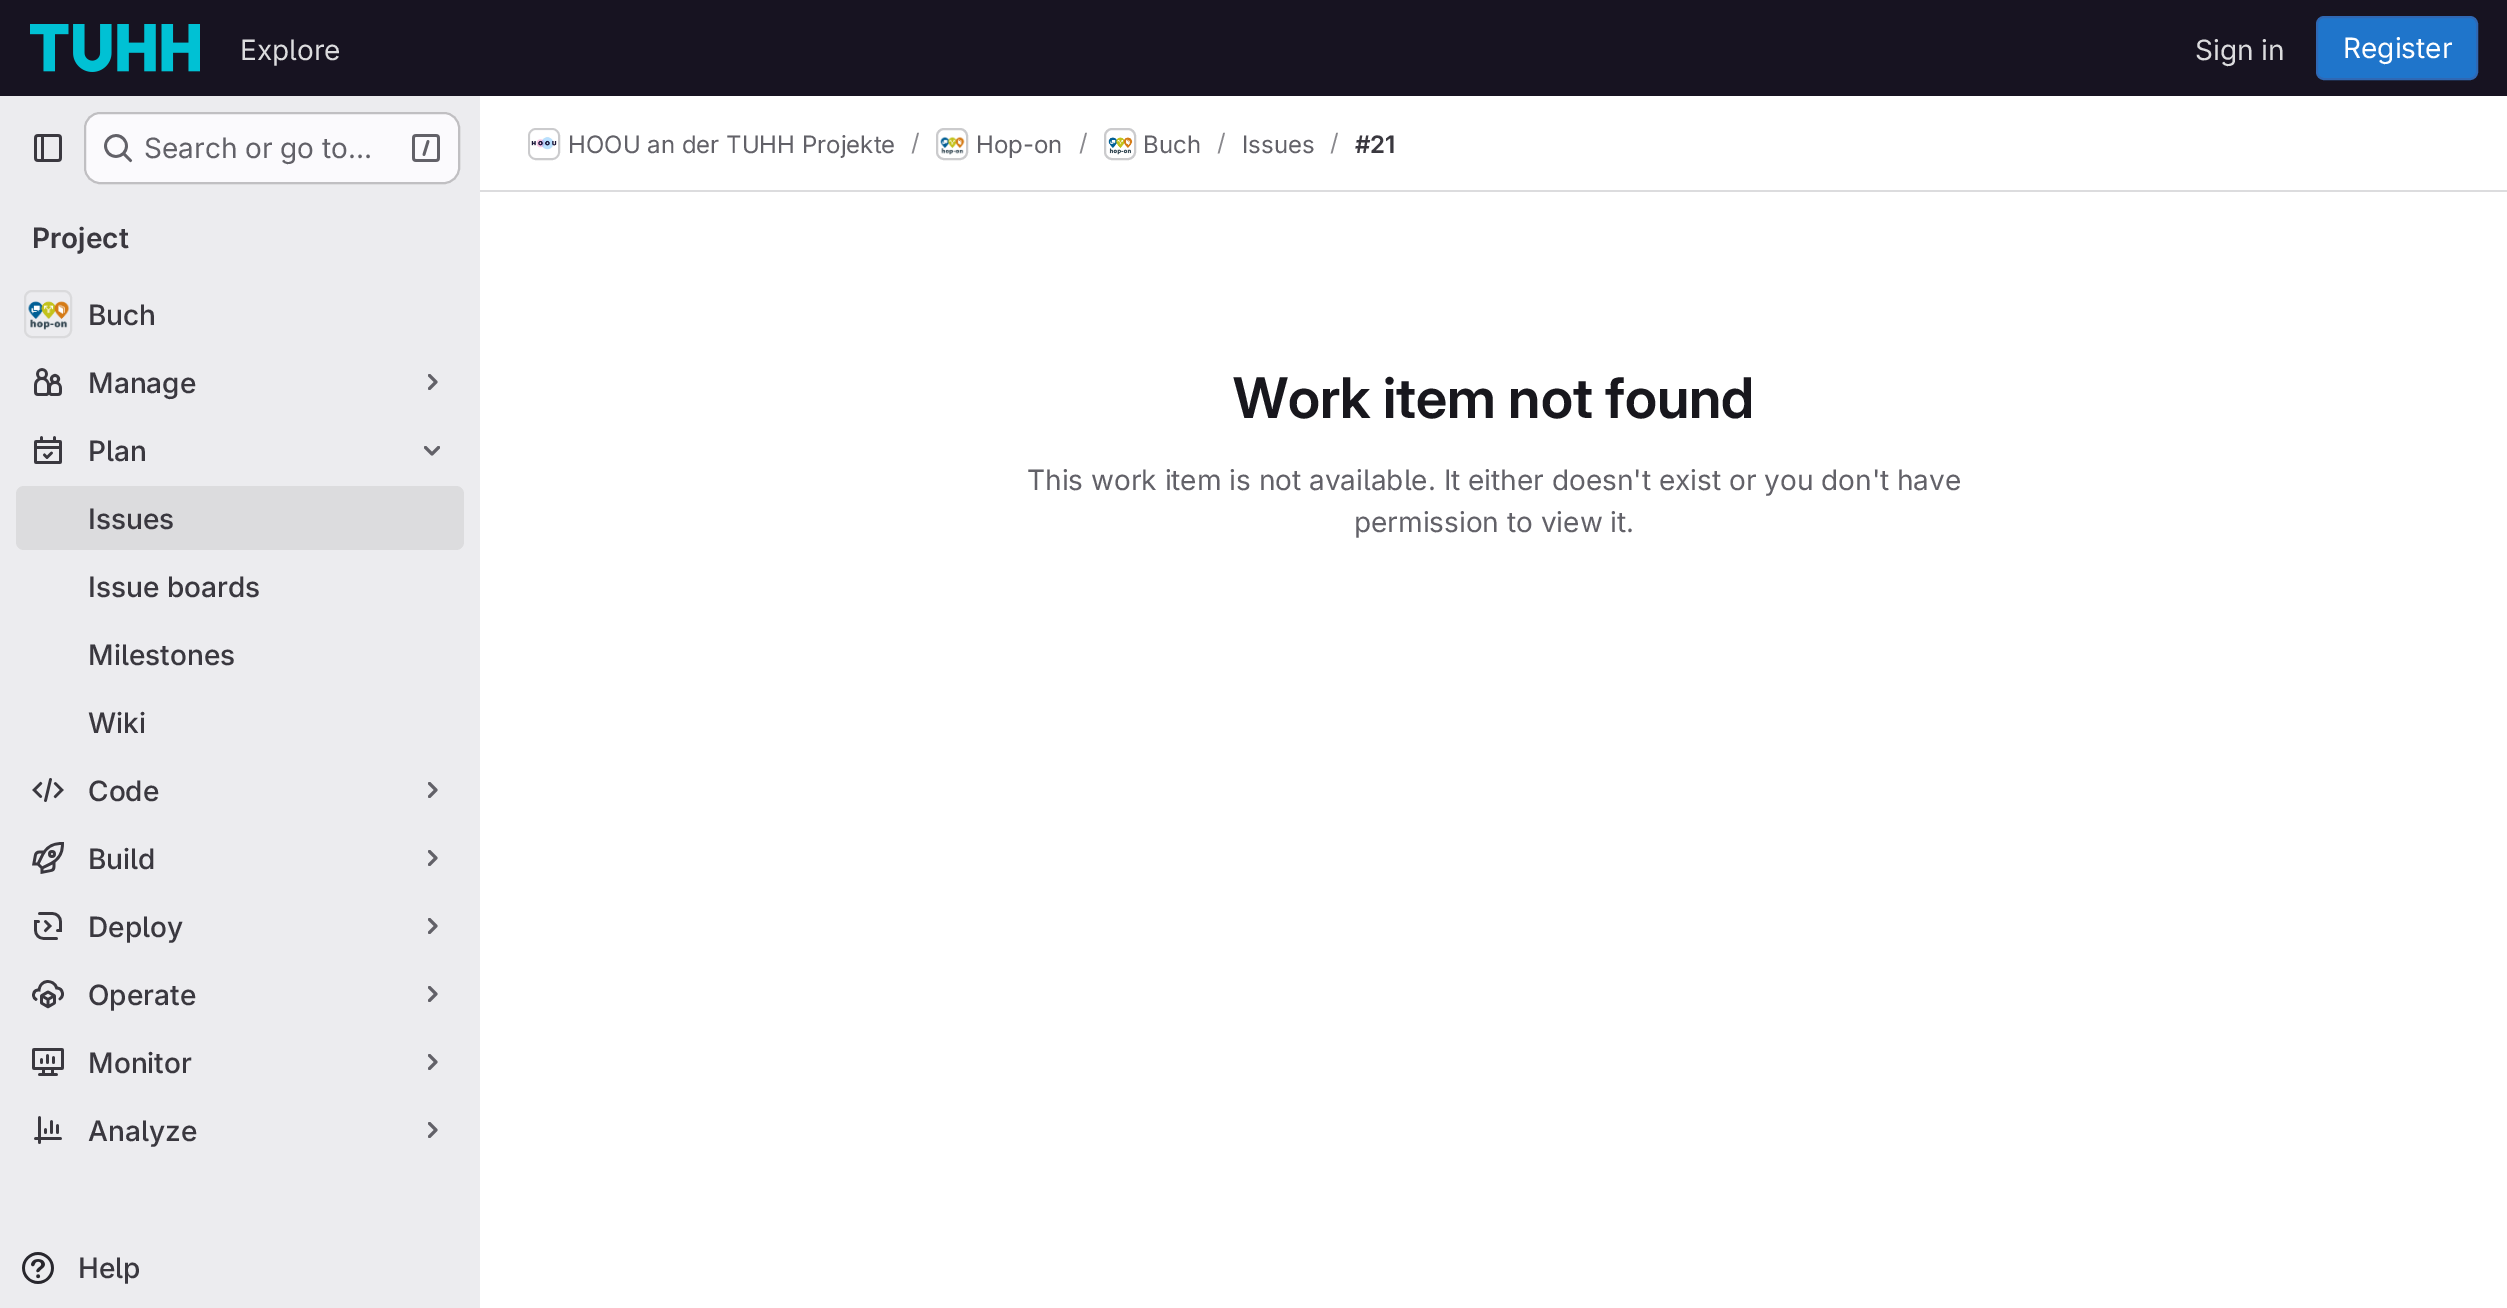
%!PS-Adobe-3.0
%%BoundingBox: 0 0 2507 1308
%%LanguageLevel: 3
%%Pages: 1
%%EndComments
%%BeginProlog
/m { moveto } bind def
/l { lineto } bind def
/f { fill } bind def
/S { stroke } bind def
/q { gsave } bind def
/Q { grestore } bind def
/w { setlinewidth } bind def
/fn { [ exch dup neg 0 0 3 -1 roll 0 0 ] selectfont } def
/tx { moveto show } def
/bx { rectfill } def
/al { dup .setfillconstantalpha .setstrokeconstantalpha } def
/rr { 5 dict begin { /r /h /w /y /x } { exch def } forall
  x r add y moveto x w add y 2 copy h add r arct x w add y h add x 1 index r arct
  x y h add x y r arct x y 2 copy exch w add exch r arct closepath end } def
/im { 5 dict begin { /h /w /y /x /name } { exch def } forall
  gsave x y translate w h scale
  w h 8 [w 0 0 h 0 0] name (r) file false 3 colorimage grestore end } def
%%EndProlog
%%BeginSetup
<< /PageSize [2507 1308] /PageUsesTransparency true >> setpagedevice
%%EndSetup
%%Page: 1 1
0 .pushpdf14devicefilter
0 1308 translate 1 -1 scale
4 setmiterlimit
1 setgray
0 0 2507 1308 bx
0.09 0.075 0.129 setrgbcolor
0 0 2507 96 bx
(image0.raw) 30 24 170 48 im
/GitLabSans-Regular 28 fn
0.863 0.863 0.871 setrgbcolor
(Explore) 240 60 tx
(Sign in) 2195 60 tx
0.122 0.459 0.796 setrgbcolor
2317 17 160 62 7 rr q f Q
0.184 0.408 0.706 setrgbcolor
2 w
S
1 setgray
(Register) 2343 58 tx
0.925 0.925 0.937 setrgbcolor
0 96 480 1212 bx
(image1.raw) 34 134 28 28 im
0.984 0.98 0.992 setrgbcolor
84 112 376 72 16 rr f
0.24 al
0.02 0.02 0.024 setrgbcolor
85 113 374 70 15 rr S
1 al
(image2.raw) 104 134 29 29 im
0.384 0.38 0.408 setrgbcolor
(Search or go to…) 144 158 tx
(image3.raw) 412 134 28 28 im
/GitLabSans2-SemiBold 28 fn
0.227 0.22 0.247 setrgbcolor
(Project) 32 248 tx
(image4.raw) 28 301 42 29 im
0.855 0.855 0.863 setrgbcolor
25 291 46 46 7 rr S
/GitLabSans-Medium 28 fn
0.227 0.22 0.247 setrgbcolor
(Buch) 88 325 tx
(image5.raw) 34 368 28 28 im
(Manage) 88 393 tx
0.384 0.38 0.408 setrgbcolor
3 w
1 setlinecap
1 setlinejoin
429.5 375.5 m 436 382 l 429.5 388.5 l S
(image6.raw) 34 436 28 28 im
0.227 0.22 0.247 setrgbcolor
(Plan) 88 461 tx
0.384 0.38 0.408 setrgbcolor
438.5 447.5 m 432 454 l 425.5 447.5 l S
0.863 0.863 0.871 setrgbcolor
16 486 448 64 8 rr f
0.227 0.22 0.247 setrgbcolor
(Issues) 88 529 tx
(Issue boards) 88 597 tx
(Milestones) 88 665 tx
(Wiki) 88 733 tx
(image7.raw) 32 778 32 24 im
(Code) 88 801 tx
0.384 0.38 0.408 setrgbcolor
429.5 783.5 m 436 790 l 429.5 796.5 l S
(image8.raw) 32 842 32 32 im
0.227 0.22 0.247 setrgbcolor
(Build) 88 869 tx
0.384 0.38 0.408 setrgbcolor
429.5 851.5 m 436 858 l 429.5 864.5 l S
(image9.raw) 34 912 28 28 im
0.227 0.22 0.247 setrgbcolor
(Deploy) 88 937 tx
0.384 0.38 0.408 setrgbcolor
429.5 919.5 m 436 926 l 429.5 932.5 l S
(image10.raw) 32 980 32 29 im
0.227 0.22 0.247 setrgbcolor
(Operate) 88 1005 tx
0.384 0.38 0.408 setrgbcolor
429.5 987.5 m 436 994 l 429.5 1000.5 l S
(image11.raw) 32 1048 32 28 im
0.227 0.22 0.247 setrgbcolor
(Monitor) 88 1073 tx
0.384 0.38 0.408 setrgbcolor
429.5 1055.5 m 436 1062 l 429.5 1068.5 l S
(image12.raw) 34 1116 28 28 im
0.227 0.22 0.247 setrgbcolor
(Analyze) 88 1141 tx
0.384 0.38 0.408 setrgbcolor
429.5 1123.5 m 436 1130 l 429.5 1136.5 l S
(image13.raw) 22 1252 32 32 im
0.227 0.22 0.247 setrgbcolor
(Help) 78 1278 tx
0.863 0.863 0.871 setrgbcolor
480 190 2027 2 bx
2 w
0 setlinecap
0 setlinejoin
529 129 30 30 7 rr S
(image14.raw) 530 130 28 28 im
0.08 al
0.02 0.02 0.024 setrgbcolor
529 129 30 30 7 rr S
/GitLabSans-Regular 24 fn
1 al
0.384 0.38 0.408 setrgbcolor
(HOOU an der TUHH Projekte) 568 153 tx
0.537 0.533 0.553 setrgbcolor
(/) 911 151 tx
0.863 0.863 0.871 setrgbcolor
937 129 30 30 7 rr S
(image15.raw) 940 136 25 19 im
0.08 al
0.02 0.02 0.024 setrgbcolor
937 129 30 30 7 rr S
1 al
0.384 0.38 0.408 setrgbcolor
(Hop-on) 976 153 tx
0.537 0.533 0.553 setrgbcolor
(/) 1079 151 tx
0.863 0.863 0.871 setrgbcolor
1105 129 30 30 7 rr S
(image16.raw) 1108 137 25 18 im
0.08 al
0.02 0.02 0.024 setrgbcolor
1105 129 30 30 7 rr S
1 al
0.384 0.38 0.408 setrgbcolor
(Buch) 1143 153 tx
0.537 0.533 0.553 setrgbcolor
(/) 1217 151 tx
0.384 0.38 0.408 setrgbcolor
(Issues) 1242 153 tx
0.537 0.533 0.553 setrgbcolor
(/) 1330 151 tx
/GitLabSans2-SemiBold 24 fn
0.227 0.22 0.247 setrgbcolor
(#21) 1355 153 tx
/GitLabSans-SemiBold 56 fn
0.094 0.09 0.114 setrgbcolor
(Work item not found) 1233 418 tx
/GitLabSans-Regular 28 fn
0.384 0.38 0.408 setrgbcolor
(This work item is not available. It either doesn't exist or you don't have) 1027 490 tx
(permission to view it.) 1354 532 tx
.poppdf14devicefilter showpage
%%EOF
